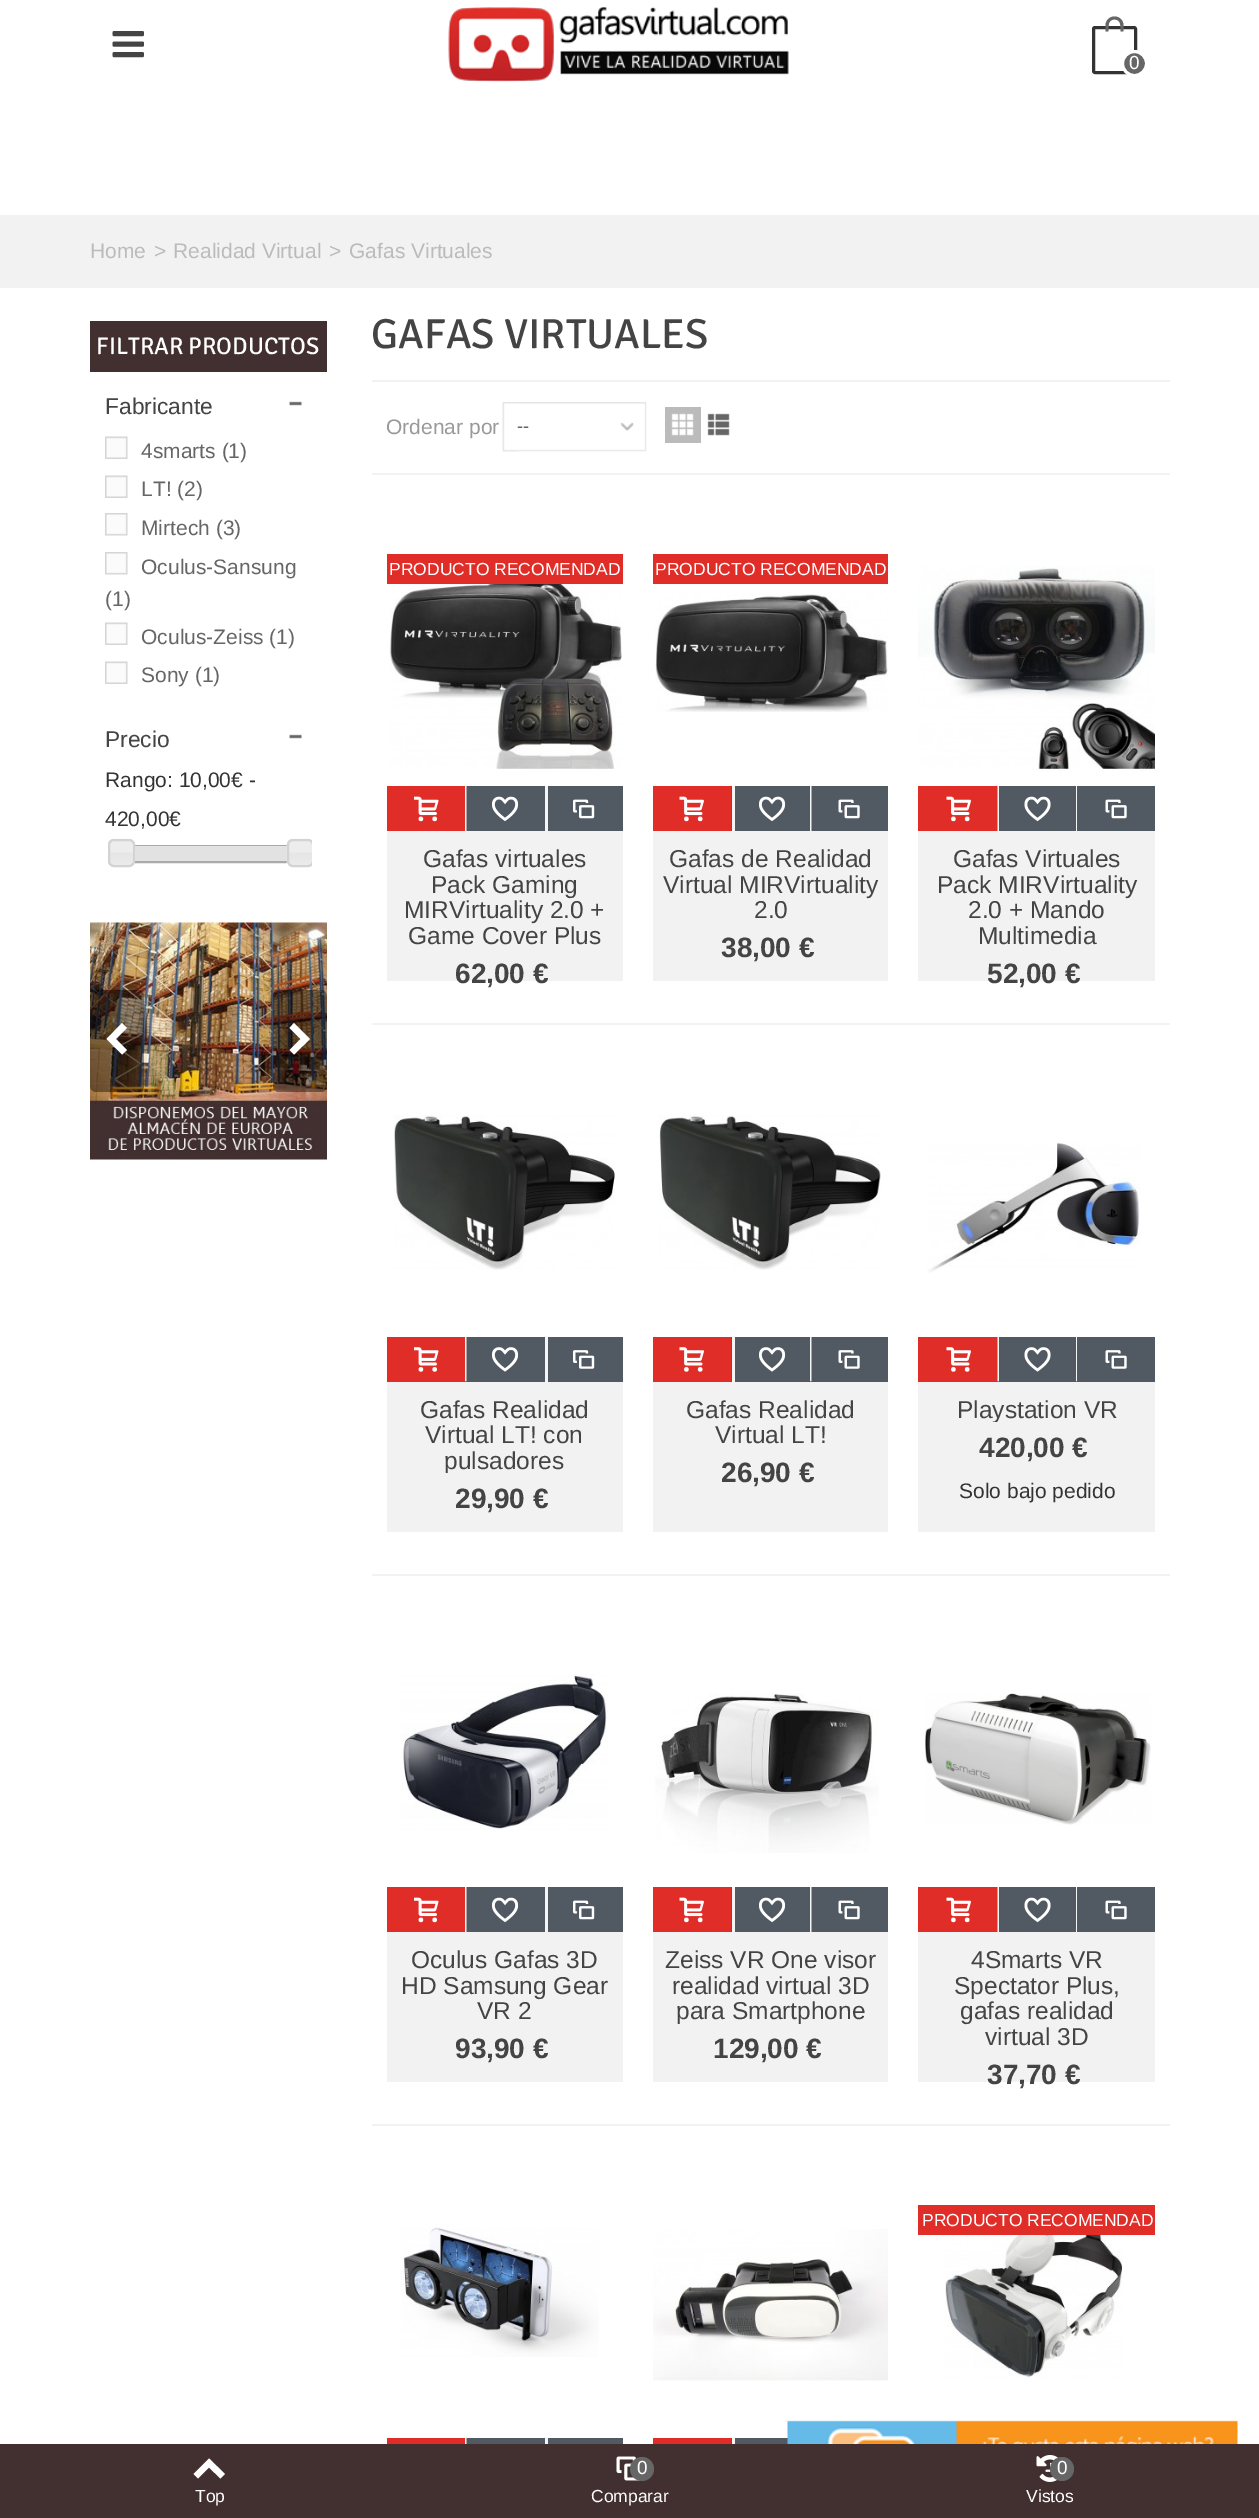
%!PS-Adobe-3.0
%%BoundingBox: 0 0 1259 2518
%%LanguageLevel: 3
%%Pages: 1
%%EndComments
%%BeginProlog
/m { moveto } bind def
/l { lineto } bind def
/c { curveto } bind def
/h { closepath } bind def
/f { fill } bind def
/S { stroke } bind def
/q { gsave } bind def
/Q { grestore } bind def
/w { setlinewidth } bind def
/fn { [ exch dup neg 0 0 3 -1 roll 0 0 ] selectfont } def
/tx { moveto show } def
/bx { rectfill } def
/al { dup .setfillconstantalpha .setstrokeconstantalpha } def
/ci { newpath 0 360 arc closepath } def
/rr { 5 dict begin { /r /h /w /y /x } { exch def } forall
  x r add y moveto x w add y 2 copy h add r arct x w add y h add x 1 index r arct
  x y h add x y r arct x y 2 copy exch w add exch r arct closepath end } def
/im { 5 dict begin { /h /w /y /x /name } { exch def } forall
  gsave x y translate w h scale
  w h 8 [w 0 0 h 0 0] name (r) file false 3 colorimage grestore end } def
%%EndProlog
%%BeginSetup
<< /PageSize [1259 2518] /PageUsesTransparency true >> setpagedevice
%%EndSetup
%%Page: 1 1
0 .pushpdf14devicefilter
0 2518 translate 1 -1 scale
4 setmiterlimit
1 setgray
0 0 1259 2518 bx
(image0.raw) 112 31 32 27 im
(image1.raw) 448 7 341 75 im
0.2 setgray
3 w
1093.5 27.5 42 45 1.5 rr S
0.4 setgray
1114.5 16.5 m 1119.5 16.5 1123.5 20.5 1123.5 25.5 c 1123.5 31.5 l 1105.5 31.5 l 1105.5 25.5 l 1105.5 20.5 1109.5 16.5 1114.5 16.5 c h 1114.5 19.5 m 1121.5 19.5 1120.5 27 1120.5 31.5 c 1108.5 31.5 l 1108.5 27 1107.5 19.5 1114.5 19.5 c h eofill
1134.5 63.5 12 ci q f Q
1 setgray
S
/LiberationSans-Regular 19 fn
(0) 1129 69 tx
0.949 setgray
0 215 1259 73 bx
/LiberationSans-Regular 21 fn
0.733 setgray
(Home) 90 258 tx
(>) 154 258 tx
(Realidad Virtual) 173 258 tx
(>) 329 258 tx
(Gafas Virtuales) 349 258 tx
0.259 0.184 0.188 setrgbcolor
90 321 237 51 bx
/Signika-Light 24 fn
1 setgray
(FILTRAR PRODUCTOS) 96 354 tx
/LiberationSans-Regular 22.75 fn
0.267 setgray
(Fabricante) 105 414 tx
(image2.raw) 289 401 13 5 im
(image3.raw) 105 436 23 23 im
/LiberationSans-Regular 21 fn
0.4 setgray
(4smarts \(1\)) 141 458 tx
(image3.raw) 105 475 23 23 im
(LT! \(2\)) 141 496 tx
(image4.raw) 105 513 23 23 im
(Mirtech \(3\)) 141 535 tx
(image4.raw) 105 552 23 23 im
(Oculus-Sansung) 141 574 tx
(\(1\)) 105 606 tx
(image3.raw) 105 622 23 23 im
(Oculus-Zeiss \(1\)) 141 644 tx
(image3.raw) 105 661 23 23 im
(Sony \(1\)) 141 682 tx
/LiberationSans-Regular 22.75 fn
0.267 setgray
(Precio) 105 747 tx
(image2.raw) 289 734 13 5 im
/LiberationSans-Regular 21 fn
0.2 setgray
(Rango: 10,00€ -) 105 787 tx
(420,00€) 105 826 tx
0.667 setgray
2 w
121 846 180 16 rectstroke
(image5.raw) 108 838 27 29 im
0.827 setgray
109 840 25 26 5 rr S
(image6.raw) 135 846 152 15 im
(image7.raw) 286 838 26 29 im
q
105 756 207 125 rectclip
288 840 25 26 5 rr S
Q
(image8.raw) 90 922 237 238 im
0.4 al
0 setgray
90 990 54 102 6 rr f
1 al
1 setgray
106.5 1039 m 122 1023 l 127 1028 l 116 1039 l 127 1050 l 122 1054.5 l h f
0.4 al
0 setgray
273 990 54 102 6 rr f
1 al
1 setgray
289.5 1050 m 300.5 1039 l 289.5 1028 l 294 1023 l 310 1039 l 294 1054.5 l h f
/Signika-Light 42 fn
0.267 setgray
(GAFAS VIRTUALES) 371 348 tx
0.949 setgray
372 380 798 2 bx
372 473 798 2 bx
/LiberationSans-Regular 21 fn
0.6 setgray
(Ordenar por) 386 434 tx
(image9.raw) 502 402 16 50 im
(image10.raw) 517 402 130 50 im
/LiberationSans-Regular 18 fn
0.4 setgray
(--) 517 432 tx
0.733 setgray
665 407 36 36 bx
(image11.raw) 671 413 23 23 im
(image12.raw) 707 413 23 23 im
0.882 0.176 0.157 setrgbcolor
387 554 236 30 bx
/LiberationSans-Regular 17.5 fn
1 setgray
(PRODUCTO RECOMENDAD) 389 575 tx
(image13.raw) 389 584 233 185 im
0.318 0.349 0.388 setrgbcolor
548 786 75 45 bx
0.878 0.176 0.157 setrgbcolor
387 786 78 45 bx
(image14.raw) 414 796 25 26 im
0.318 0.349 0.388 setrgbcolor
466 786 79 45 bx
(image15.raw) 465 786 2 45 im
(image16.raw) 492 796 27 26 im
0.961 setgray
545 786 3 45 bx
(image17.raw) 573 799 22 20 im
0.949 setgray
387 831 236 150 bx
/LiberationSans-Regular 24.5 fn
0.267 setgray
(Gafas virtuales) 423 867 tx
(Pack Gaming) 431 893 tx
(MIRVirtuality 2.0 +) 404 918 tx
(Game Cover Plus) 408 944 tx
/LiberationSans-Bold 28 fn
(62,00 €) 455 983 tx
0.882 0.176 0.157 setrgbcolor
653 554 235 30 bx
/LiberationSans-Regular 17.5 fn
1 setgray
(PRODUCTO RECOMENDAD) 655 575 tx
(image18.raw) 655 593 233 119 im
0.318 0.349 0.388 setrgbcolor
731 786 157 45 bx
0.878 0.176 0.157 setrgbcolor
653 786 78 45 bx
(image19.raw) 679 796 25 26 im
0.961 setgray
732 786 3 45 bx
(image16.raw) 759 796 27 26 im
(image15.raw) 810 786 2 45 im
(image20.raw) 838 799 22 20 im
0.949 setgray
653 831 235 150 bx
/LiberationSans-Regular 24.5 fn
0.267 setgray
(Gafas de Realidad) 669 867 tx
(Virtual MIRVirtuality) 663 893 tx
(2.0) 754 918 tx
/LiberationSans-Bold 28 fn
(38,00 €) 721 957 tx
(image21.raw) 918 566 237 206 im
0.318 0.349 0.388 setrgbcolor
1077 786 78 45 bx
0.878 0.176 0.157 setrgbcolor
918 786 80 45 bx
(image19.raw) 946 796 25 26 im
0.318 0.349 0.388 setrgbcolor
999 786 77 45 bx
(image22.raw) 997 786 2 45 im
(image23.raw) 1024 796 27 26 im
(image24.raw) 1076 786 1 45 im
(image20.raw) 1105 799 22 20 im
0.949 setgray
918 831 237 150 bx
/LiberationSans-Regular 24.5 fn
0.267 setgray
(Gafas Virtuales) 953 867 tx
(Pack MIRVirtuality) 937 893 tx
(2.0 + Mando) 968 918 tx
(Multimedia) 978 944 tx
/LiberationSans-Bold 28 fn
(52,00 €) 987 983 tx
0.949 setgray
372 1023 798 2 bx
(image25.raw) 394 1115 221 155 im
0.318 0.349 0.388 setrgbcolor
548 1337 75 45 bx
0.878 0.176 0.157 setrgbcolor
387 1337 78 45 bx
(image26.raw) 414 1347 25 25 im
0.961 setgray
544 1336 4 46 bx
0.318 0.349 0.388 setrgbcolor
465 1337 80 45 bx
(image27.raw) 465 1336 2 46 im
(image28.raw) 492 1347 27 25 im
(image29.raw) 573 1350 22 19 im
0.949 setgray
387 1382 236 150 bx
/LiberationSans-Regular 24.5 fn
0.267 setgray
(Gafas Realidad) 420 1418 tx
(Virtual LT! con) 425 1443 tx
q
396 1397 218 76 rectclip
(pulsadores) 444 1469 tx
Q
/LiberationSans-Bold 28 fn
(29,90 €) 455 1508 tx
(image30.raw) 659 1115 222 155 im
0.318 0.349 0.388 setrgbcolor
731 1337 157 45 bx
0.878 0.176 0.157 setrgbcolor
653 1337 78 45 bx
(image31.raw) 679 1347 25 25 im
0.961 setgray
732 1336 3 46 bx
(image28.raw) 759 1347 27 25 im
(image27.raw) 810 1336 2 46 im
(image32.raw) 838 1350 22 19 im
0.949 setgray
653 1382 235 150 bx
/LiberationSans-Regular 24.5 fn
0.267 setgray
(Gafas Realidad) 686 1418 tx
(Virtual LT!) 715 1443 tx
/LiberationSans-Bold 28 fn
(26,90 €) 721 1482 tx
(image33.raw) 927 1142 213 131 im
0.318 0.349 0.388 setrgbcolor
1076 1337 79 45 bx
0.878 0.176 0.157 setrgbcolor
918 1337 80 45 bx
(image31.raw) 946 1347 25 25 im
(image36.raw) 1075 1336 2 46 im
0.318 0.349 0.388 setrgbcolor
998 1337 78 45 bx
(image34.raw) 997 1336 2 46 im
(image35.raw) 1024 1347 27 25 im
(image32.raw) 1105 1350 22 19 im
0.949 setgray
918 1382 237 150 bx
q
927 1397 219 25 rectclip
/LiberationSans-Regular 24.5 fn
0.267 setgray
(Playstation VR) 957 1418 tx
Q
0.267 setgray
(420,00 €) 979 1457 tx
/LiberationSans-Regular 21 fn
0.2 setgray
(Solo bajo pedido) 959 1498 tx
0.949 setgray
372 1574 798 2 bx
(image37.raw) 401 1674 207 156 im
0.318 0.349 0.388 setrgbcolor
548 1887 75 45 bx
0.878 0.176 0.157 setrgbcolor
387 1887 78 45 bx
(image14.raw) 414 1897 25 26 im
0.318 0.349 0.388 setrgbcolor
466 1887 79 45 bx
(image15.raw) 465 1887 2 45 im
(image16.raw) 492 1897 27 26 im
0.961 setgray
545 1887 3 45 bx
(image17.raw) 573 1900 22 20 im
0.949 setgray
387 1932 236 150 bx
/LiberationSans-Regular 24.5 fn
0.267 setgray
(Oculus Gafas 3D) 411 1968 tx
(HD Samsung Gear) 401 1994 tx
(VR 2) 477 2019 tx
/LiberationSans-Bold 28 fn
(93,90 €) 455 2058 tx
(image38.raw) 655 1693 224 160 im
0.318 0.349 0.388 setrgbcolor
731 1887 157 45 bx
0.878 0.176 0.157 setrgbcolor
653 1887 78 45 bx
(image19.raw) 679 1897 25 26 im
0.961 setgray
732 1887 3 45 bx
(image16.raw) 759 1897 27 26 im
(image15.raw) 810 1887 2 45 im
(image20.raw) 838 1900 22 20 im
0.949 setgray
653 1932 235 150 bx
/LiberationSans-Regular 24.5 fn
0.267 setgray
(Zeiss VR One visor) 665 1968 tx
(realidad virtual 3D) 672 1994 tx
q
662 1947 217 77 rectclip
(para Smartphone) 676 2019 tx
Q
/LiberationSans-Bold 28 fn
(129,00 €) 713 2058 tx
(image39.raw) 925 1693 226 132 im
0.318 0.349 0.388 setrgbcolor
1077 1887 78 45 bx
0.878 0.176 0.157 setrgbcolor
918 1887 80 45 bx
(image19.raw) 946 1897 25 26 im
0.318 0.349 0.388 setrgbcolor
999 1887 77 45 bx
(image22.raw) 997 1887 2 45 im
(image23.raw) 1024 1897 27 26 im
(image24.raw) 1076 1887 1 45 im
(image20.raw) 1105 1900 22 20 im
0.949 setgray
918 1932 237 150 bx
/LiberationSans-Regular 24.5 fn
0.267 setgray
(4Smarts VR) 971 1968 tx
(Spectator Plus,) 954 1994 tx
(gafas realidad) 960 2019 tx
(virtual 3D) 985 2045 tx
/LiberationSans-Bold 28 fn
(37,70 €) 987 2084 tx
0.949 setgray
372 2124 798 2 bx
(image40.raw) 401 2223 198 134 im
0.318 0.349 0.388 setrgbcolor
548 2438 75 6 bx
0.878 0.176 0.157 setrgbcolor
387 2438 78 6 bx
0.961 setgray
544 2437 4 7 bx
0.318 0.349 0.388 setrgbcolor
466 2438 79 6 bx
(image41.raw) 465 2437 2 7 im
0.882 0.176 0.157 setrgbcolor
918 2205 237 30 bx
/LiberationSans-Regular 17.5 fn
1 setgray
(PRODUCTO RECOMENDAD) 922 2226 tx
(image42.raw) 945 2235 178 143 im
(image43.raw) 653 2229 235 152 im
0.318 0.349 0.388 setrgbcolor
731 2438 57 6 bx
0.878 0.176 0.157 setrgbcolor
653 2438 78 6 bx
0.961 setgray
732 2437 3 7 bx
(image44.raw) 787 2420 451 24 im
0.259 0.184 0.188 setrgbcolor
0 2444 1259 74 bx
1 setgray
193.5 2474 m 209 2458.5 l 225 2474 l 220.5 2478.5 l 209 2467.5 l 198 2478.5 l h f
(Top) 195 2502 tx
(image45.raw) 616 2456 27 25 im
0.4 setgray
642 2469 12 ci f
/LiberationSans-Regular 19 fn
1 setgray
(0) 637 2474 tx
/LiberationSans-Regular 17.5 fn
(Comparar) 591 2502 tx
(image46.raw) 1036 2455 23 27 im
0.4 setgray
1062 2469 12 ci f
/LiberationSans-Regular 19 fn
1 setgray
(0) 1057 2474 tx
/LiberationSans-Regular 17.5 fn
(Vistos) 1026 2502 tx
.poppdf14devicefilter showpage
%%EOF
